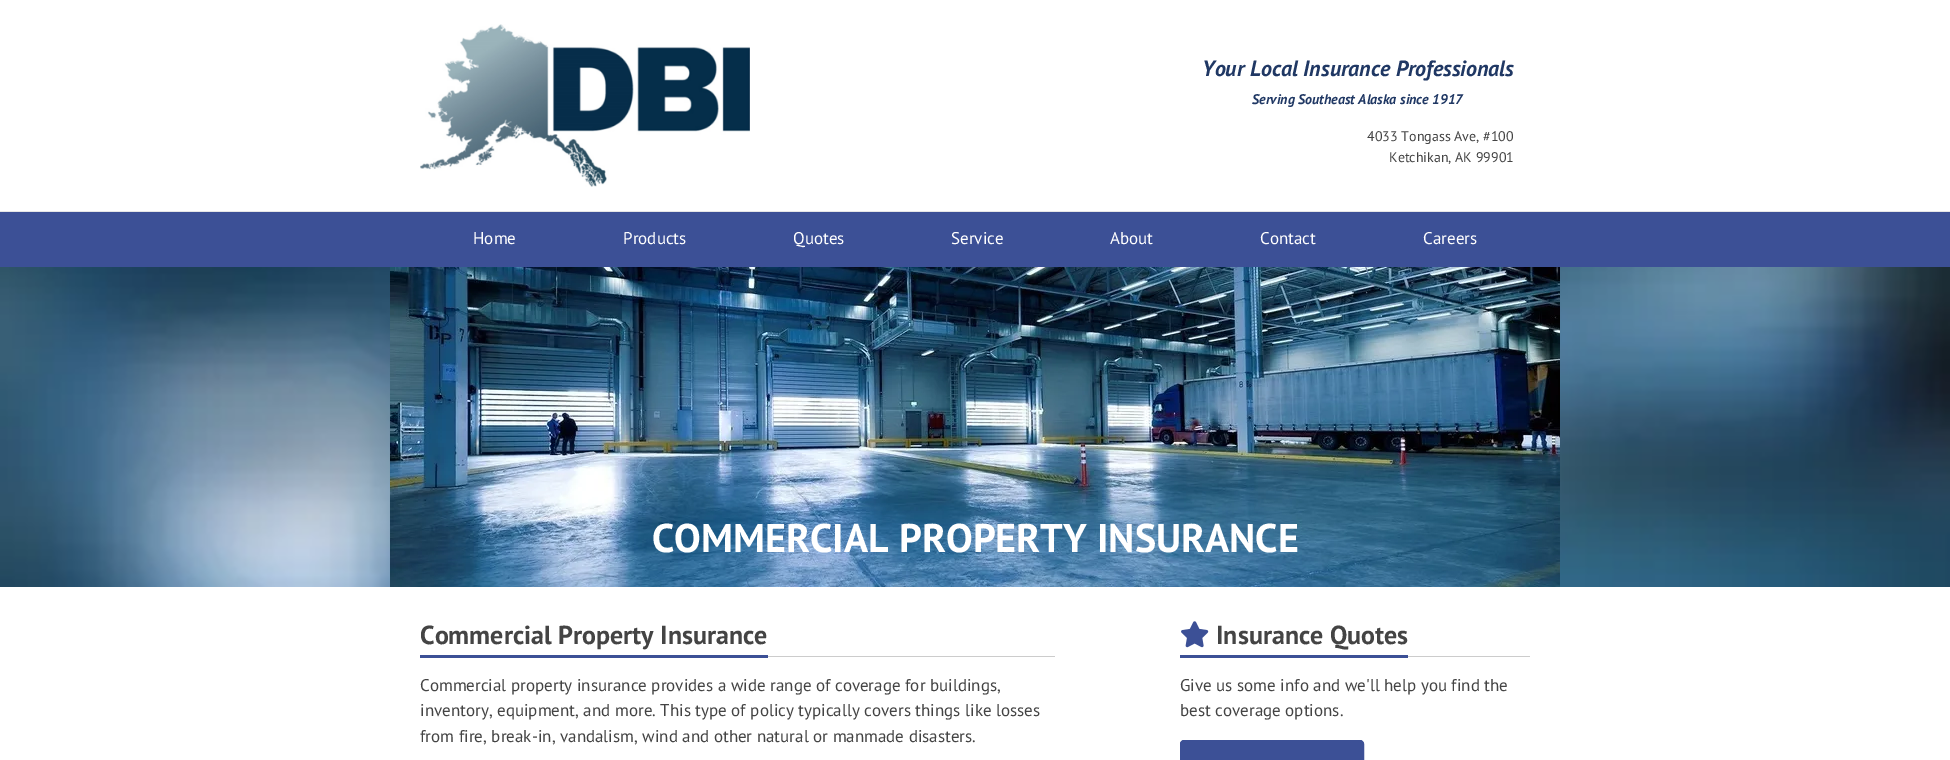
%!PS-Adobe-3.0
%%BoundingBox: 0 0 1950 760
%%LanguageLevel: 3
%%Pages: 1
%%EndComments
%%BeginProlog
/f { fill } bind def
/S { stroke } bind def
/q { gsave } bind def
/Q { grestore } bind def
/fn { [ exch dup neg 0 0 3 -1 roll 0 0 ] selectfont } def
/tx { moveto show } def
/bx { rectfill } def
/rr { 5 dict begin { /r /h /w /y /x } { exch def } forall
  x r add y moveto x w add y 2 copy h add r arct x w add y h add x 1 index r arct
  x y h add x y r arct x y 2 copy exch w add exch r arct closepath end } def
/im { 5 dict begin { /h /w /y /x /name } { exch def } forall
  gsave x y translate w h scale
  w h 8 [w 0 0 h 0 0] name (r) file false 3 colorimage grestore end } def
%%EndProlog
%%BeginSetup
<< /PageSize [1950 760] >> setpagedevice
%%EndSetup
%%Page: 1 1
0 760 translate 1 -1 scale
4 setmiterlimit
1 setgray
0 0 1950 760 bx
(image0.raw) 420 24 330 163 im
/PTSans-BoldItalic 22 fn
0.125 0.22 0.392 setrgbcolor
(Your Local Insurance Professionals) 1202 76 tx
/PTSans-BoldItalic 14 fn
(Serving Southeast Alaska since 1917) 1252 104 tx
/PTSans-Regular 14 fn
0.267 setgray
(4033 Tongass Ave, #100) 1367 141 tx
(Ketchikan, AK 99901) 1389 162 tx
0.902 setgray
0 211 1950 1 bx
0.235 0.314 0.588 setrgbcolor
0 212 1950 55 bx
/PTSans-Regular 17 fn
1 setgray
(Home) 473 244 tx
(Products) 623 244 tx
(Quotes) 793 244 tx
(Service) 951 244 tx
(About) 1110 244 tx
(Contact) 1260 244 tx
(Careers) 1423 244 tx
(image1.raw) 0 267 1950 320 im
(image2.raw) 390 267 1170 320 im
/PTSans-Bold 40 fn
(COMMERCIAL PROPERTY INSURANCE) 652 552 tx
0.8 setgray
768 656 287 1 bx
0.235 0.314 0.588 setrgbcolor
420 655 348 3 bx
/PTSans-Bold 26 fn
0.267 setgray
(Commercial Property Insurance) 420 644 tx
/PTSans-Regular 17 fn
(Commercial property insurance provides a wide range of coverage for buildings,) 420 691 tx
(inventory, equipment, and more. This type of policy typically covers things like losses) 420 716 tx
(from fire, break-in, vandalism, wind and other natural or manmade disasters.) 420 742 tx
0.8 setgray
1408 656 122 1 bx
0.235 0.314 0.588 setrgbcolor
1180 655 228 3 bx
(image3.raw) 1181 621 28 27 im
/PTSans-Bold 26 fn
0.267 setgray
(Insurance Quotes) 1216 644 tx
/PTSans-Regular 17 fn
(Give us some info and we'll help you find the) 1180 691 tx
(best coverage options.) 1180 716 tx
0.235 0.314 0.588 setrgbcolor
1180.5 740.5 183 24 3.5 rr q f Q
S
showpage
%%EOF
